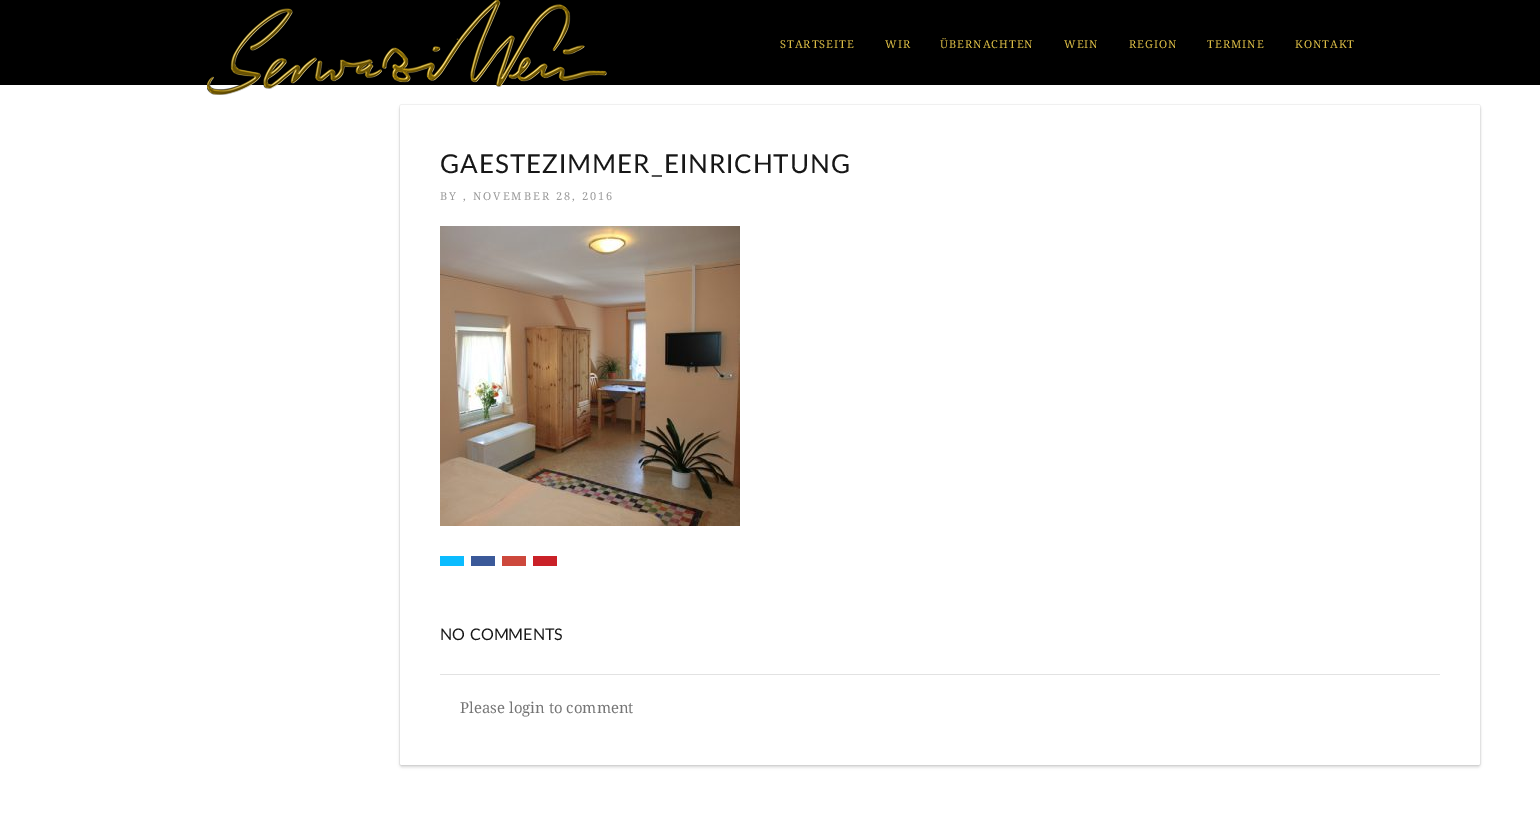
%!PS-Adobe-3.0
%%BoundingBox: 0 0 1540 830
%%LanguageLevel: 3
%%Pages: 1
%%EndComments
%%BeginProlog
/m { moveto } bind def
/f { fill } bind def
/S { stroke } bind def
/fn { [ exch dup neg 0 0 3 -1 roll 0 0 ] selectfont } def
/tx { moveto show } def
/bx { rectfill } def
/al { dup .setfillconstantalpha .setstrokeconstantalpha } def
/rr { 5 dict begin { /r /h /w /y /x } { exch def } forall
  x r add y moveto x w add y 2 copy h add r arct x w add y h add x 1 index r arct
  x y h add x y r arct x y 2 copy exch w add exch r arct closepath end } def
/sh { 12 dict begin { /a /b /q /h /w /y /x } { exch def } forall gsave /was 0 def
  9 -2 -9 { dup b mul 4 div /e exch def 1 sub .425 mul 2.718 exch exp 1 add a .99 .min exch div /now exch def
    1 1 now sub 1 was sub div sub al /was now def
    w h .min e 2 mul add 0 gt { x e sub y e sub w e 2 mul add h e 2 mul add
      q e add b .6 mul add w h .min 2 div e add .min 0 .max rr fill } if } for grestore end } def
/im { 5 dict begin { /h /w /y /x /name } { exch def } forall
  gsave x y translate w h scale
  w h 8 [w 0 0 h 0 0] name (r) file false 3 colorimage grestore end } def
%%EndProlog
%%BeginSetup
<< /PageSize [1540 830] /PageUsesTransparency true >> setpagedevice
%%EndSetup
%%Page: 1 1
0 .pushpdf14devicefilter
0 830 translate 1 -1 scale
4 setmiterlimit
1 setgray
0 0 1540 830 bx
0 setgray
0 0 1540 85 bx
(image0.raw) 207 0 400 95 im
/NotoSerif-Regular 11 fn
0.867 0.745 0.275 setrgbcolor
780 48 m 1 0 (STARTSEITE) ashow
885 48 m 1 0 (WIR) ashow
940 48 m 1 0 (ÜBERNACHTEN) ashow
1064 48 m 1 0 (WEIN) ashow
1129 48 m 1 0 (REGION) ashow
1207 48 m 1 0 (TERMINE) ashow
1295 48 m 1 0 (KONTAKT) ashow
0.949 setgray
399.5 104.5 1081 661 2.5 rr S
0 setgray
400 107 1080 660 2 1.5 0.15 sh
1 setgray
400 105 1080 660 2 rr f
/Lato-Regular 26 fn
0.09 setgray
440 173 m 1 0 (GAESTEZIMMER_EINRICHTUNG) ashow
/NotoSerif-Regular 11 fn
0.6 setgray
440 200 m 2 0 (BY , NOVEMBER 28, 2016) ashow
(image1.raw) 440 226 300 300 im
0.043 0.737 1 setrgbcolor
440 556 24 10 bx
0.231 0.349 0.6 setrgbcolor
471 556 24 10 bx
0.804 0.282 0.235 setrgbcolor
502 556 24 10 bx
0.792 0.129 0.157 setrgbcolor
533 556 24 10 bx
/Lato-Regular 16 fn
0.09 setgray
440 640 m 1 0 32 (NO COMMENTS) widthshow
0.886 setgray
440 674 1000 1 bx
/NotoSerif-Regular 15 fn
0.459 setgray
(Please login to comment) 460 713 tx
.poppdf14devicefilter showpage
%%EOF
